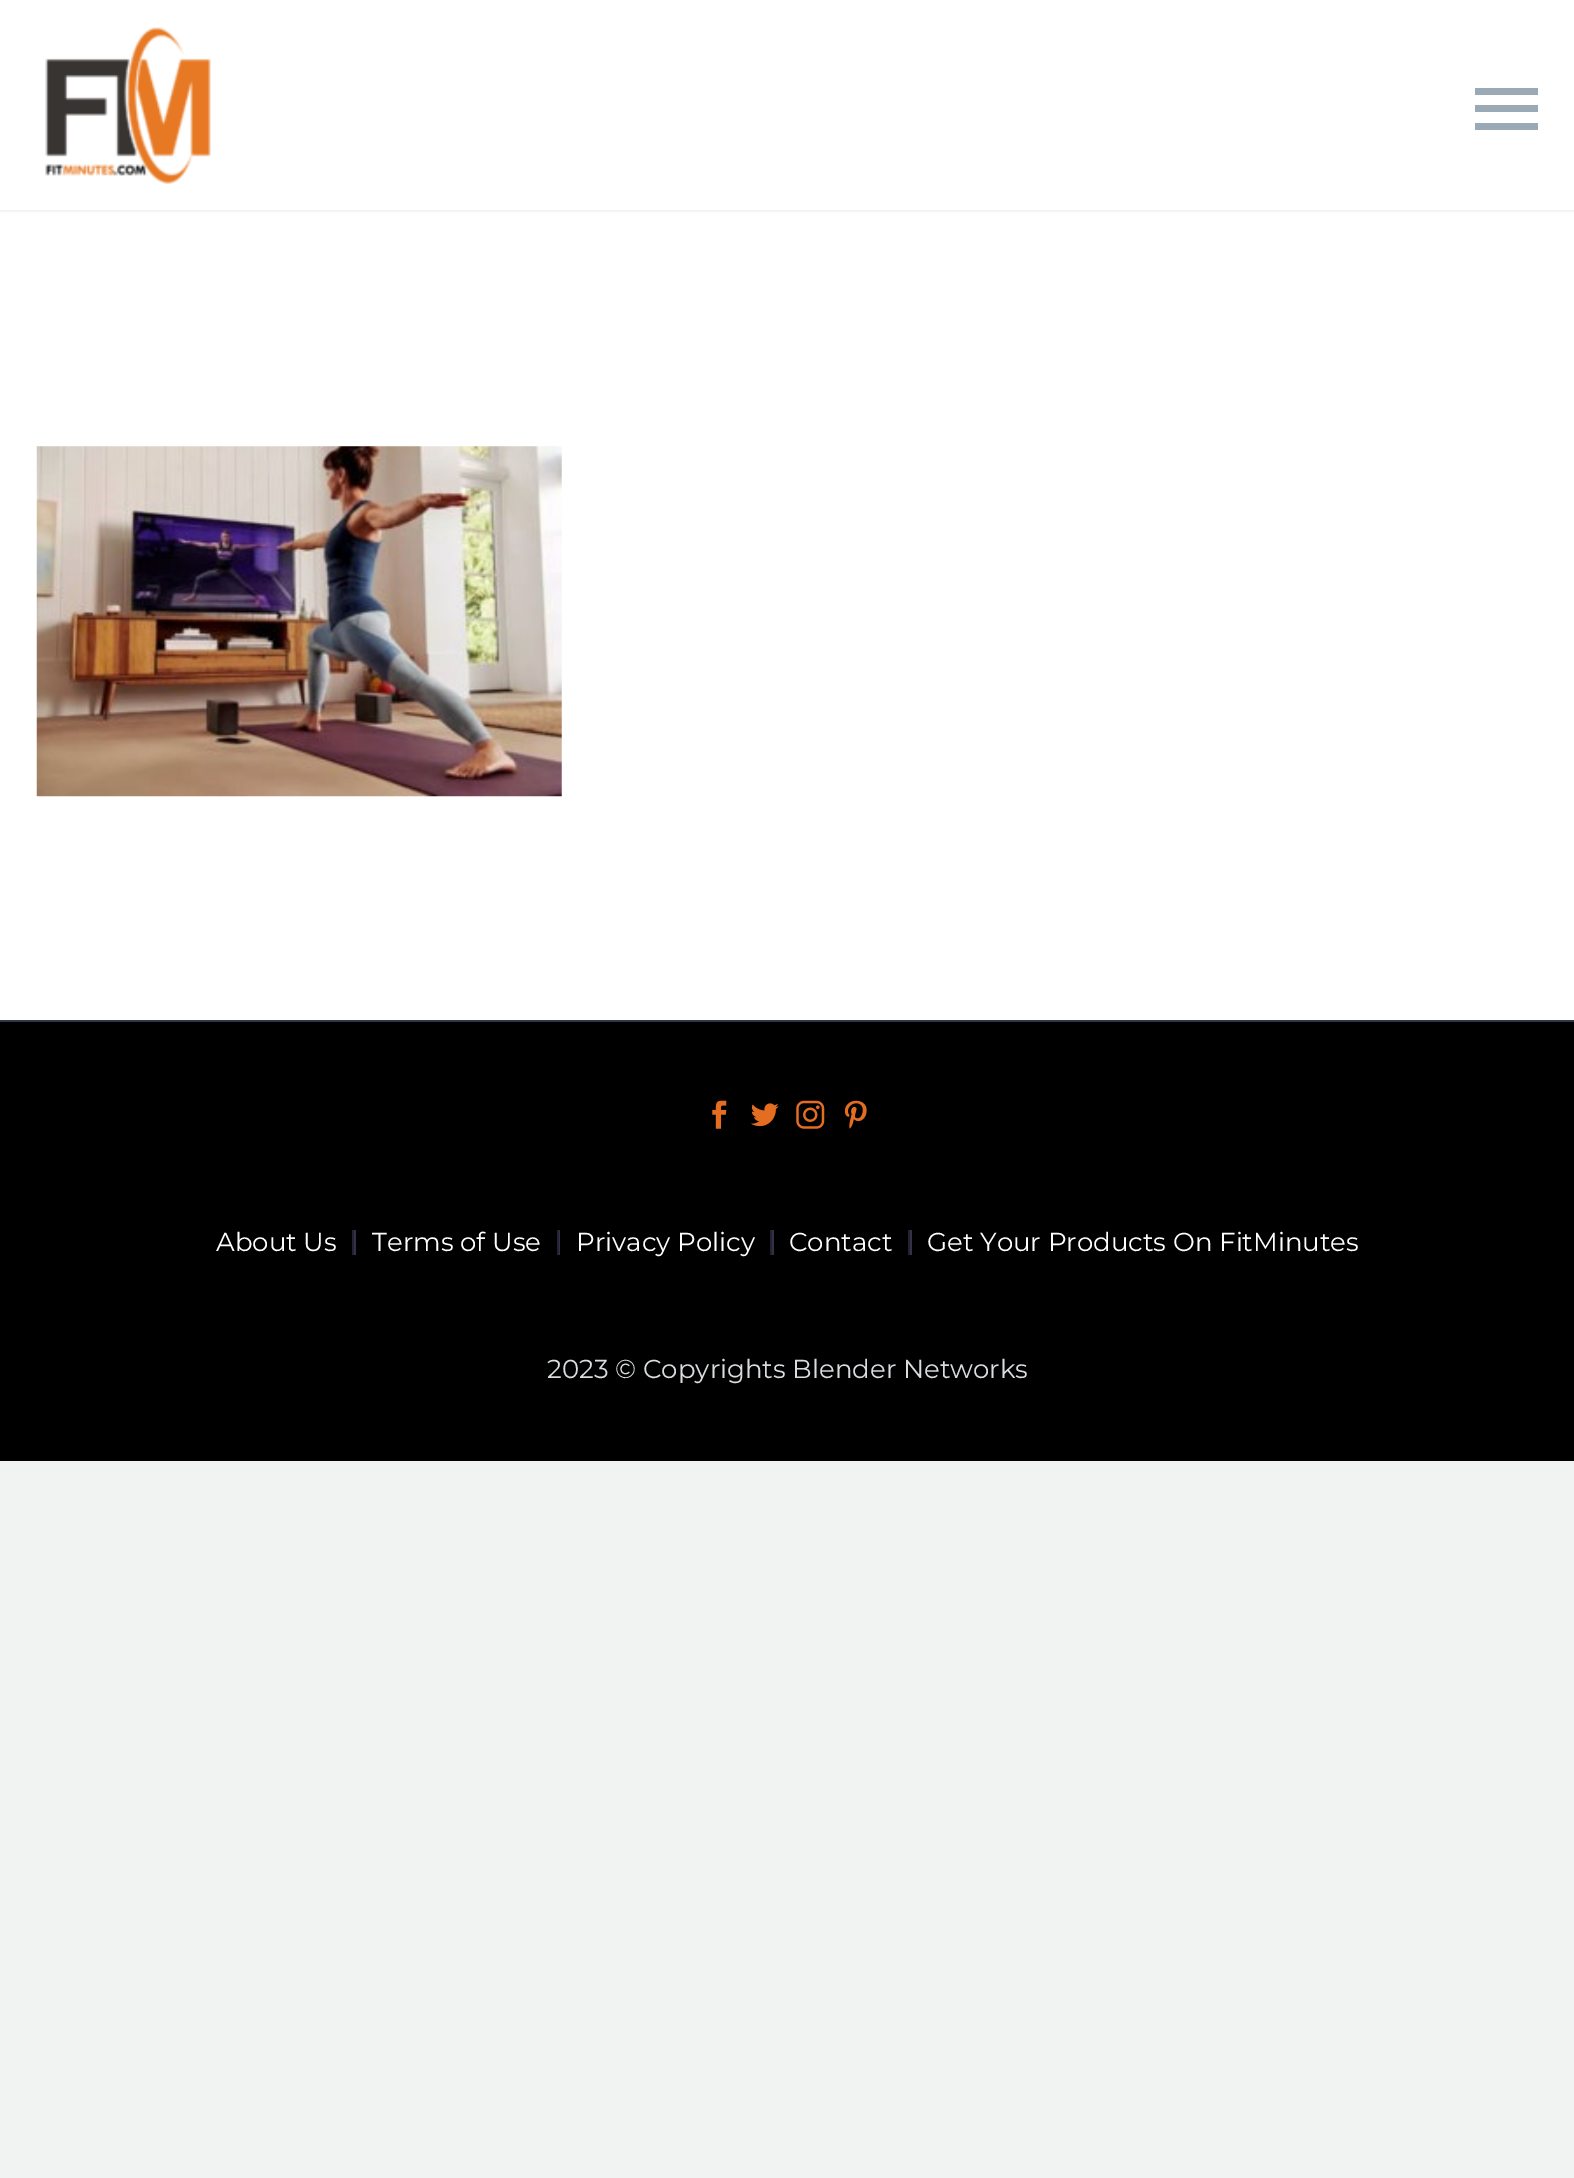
%!PS-Adobe-3.0
%%BoundingBox: 0 0 1574 2178
%%LanguageLevel: 3
%%Pages: 1
%%EndComments
%%BeginProlog
/q { gsave } bind def
/Q { grestore } bind def
/fn { [ exch dup neg 0 0 3 -1 roll 0 0 ] selectfont } def
/tx { moveto show } def
/bx { rectfill } def
/al { dup .setfillconstantalpha .setstrokeconstantalpha } def
/rr { 5 dict begin { /r /h /w /y /x } { exch def } forall
  x r add y moveto x w add y 2 copy h add r arct x w add y h add x 1 index r arct
  x y h add x y r arct x y 2 copy exch w add exch r arct closepath end } def
/sh { 12 dict begin { /a /b /q /h /w /y /x } { exch def } forall gsave /was 0 def
  9 -2 -9 { dup b mul 4 div /e exch def 1 sub .425 mul 2.718 exch exp 1 add a .99 .min exch div /now exch def
    1 1 now sub 1 was sub div sub al /was now def
    w h .min e 2 mul add 0 gt { x e sub y e sub w e 2 mul add h e 2 mul add
      q e add b .6 mul add w h .min 2 div e add .min 0 .max rr fill } if } for grestore end } def
/im { 5 dict begin { /h /w /y /x /name } { exch def } forall
  gsave x y translate w h scale
  w h 8 [w 0 0 h 0 0] name (r) file false 3 colorimage grestore end } def
%%EndProlog
%%BeginSetup
<< /PageSize [1574 2178] /PageUsesTransparency true >> setpagedevice
%%EndSetup
%%Page: 1 1
0 .pushpdf14devicefilter
0 2178 translate 1 -1 scale
4 setmiterlimit
0.941 0.953 0.949 setrgbcolor
0 0 1574 2178 bx
1 setgray
0 0 1574 1020 bx
q
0 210 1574 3 rectclip
0.22 0.271 0.329 setrgbcolor
0 0 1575 210 0 2 0.2 sh
Q
(image0.raw) 45 27 166 157 im
0.6 0.663 0.71 setrgbcolor
1475 88 63 7 bx
1475 105 63 7 bx
1475 123 63 7 bx
(image1.raw) 36 446 526 351 im
0 setgray
0 1022 1574 439 bx
0.192 0.212 0.275 setrgbcolor
0 1020 1574 2 bx
(image2.raw) 712 1100 15 29 im
(image3.raw) 751 1103 28 24 im
(image4.raw) 796 1100 29 29 im
(image5.raw) 844 1100 23 29 im
/Montserrat-Regular 26 fn
1 setgray
(About Us) 216 1251 tx
0.2 0.192 0.275 setrgbcolor
354 1230 2 25 bx
0.137 0.133 0.204 setrgbcolor
352 1230 2 25 bx
1 setgray
(Terms of Use) 372 1251 tx
0.2 0.192 0.275 setrgbcolor
559 1230 1 25 bx
0.137 0.133 0.204 setrgbcolor
557 1230 2 25 bx
1 setgray
(Privacy Policy) 576 1251 tx
0.2 0.192 0.275 setrgbcolor
772 1230 2 25 bx
0.137 0.133 0.204 setrgbcolor
770 1230 2 25 bx
1 setgray
(Contact) 789 1251 tx
0.2 0.192 0.275 setrgbcolor
910 1230 2 25 bx
0.137 0.133 0.204 setrgbcolor
908 1230 2 25 bx
1 setgray
(Get Your Products On FitMinutes) 927 1251 tx
0.851 0.867 0.878 setrgbcolor
(2023 © Copyrights Blender Networks) 547 1378 tx
.poppdf14devicefilter showpage
%%EOF
